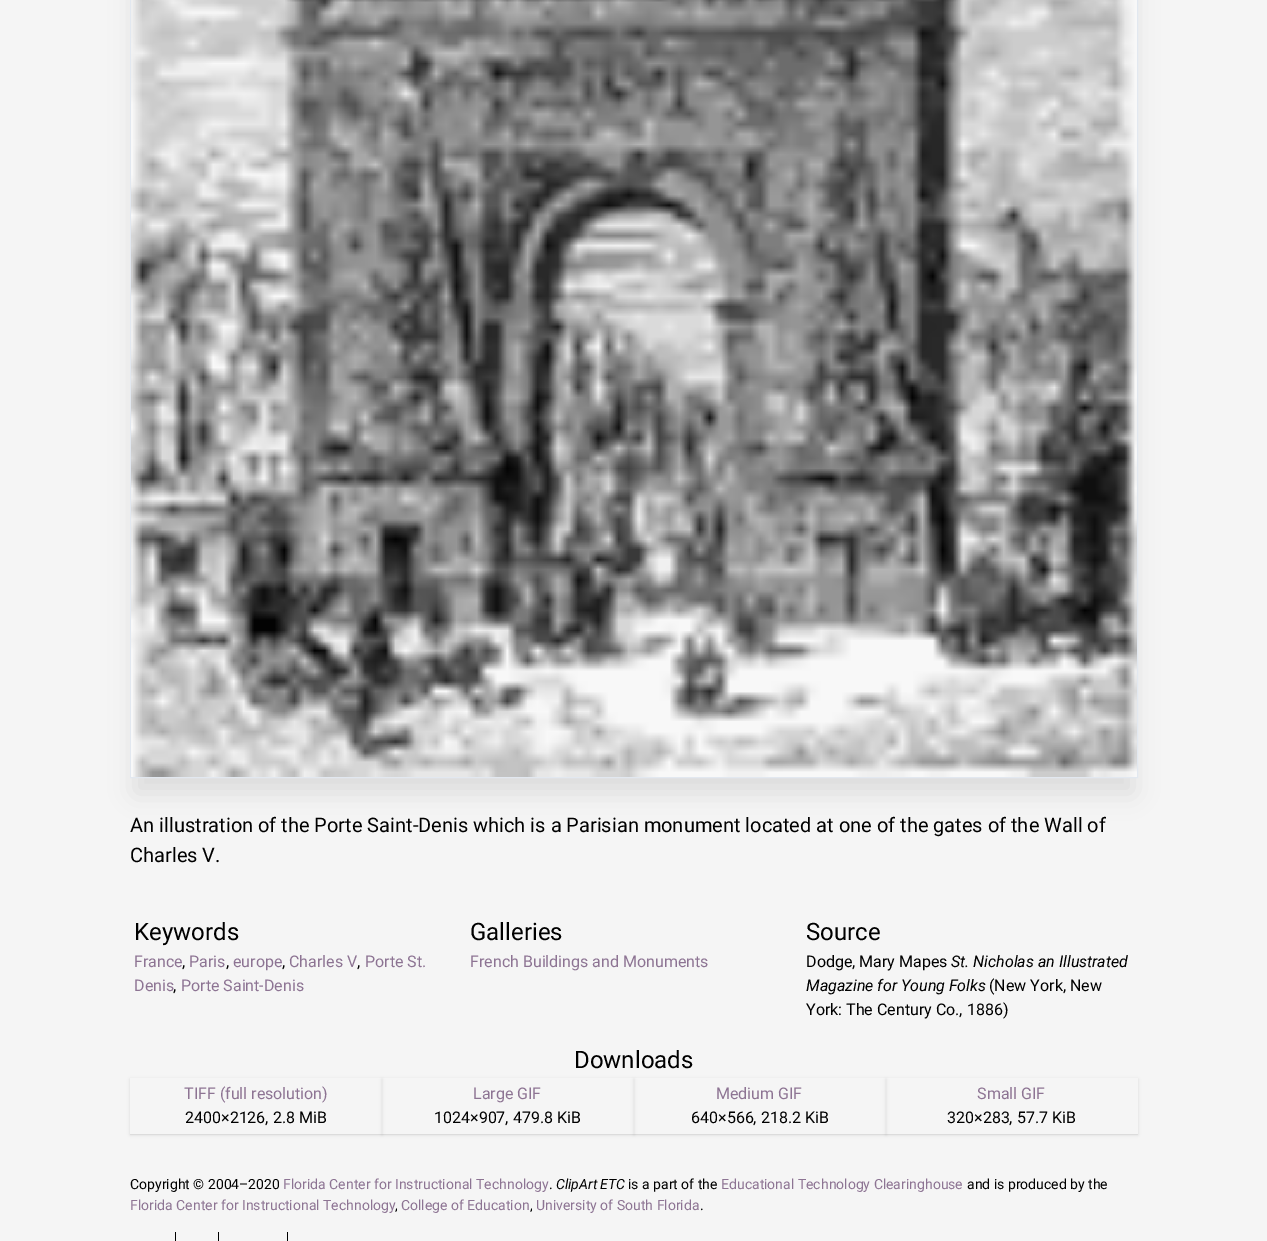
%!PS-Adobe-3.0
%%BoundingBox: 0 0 1267 1241
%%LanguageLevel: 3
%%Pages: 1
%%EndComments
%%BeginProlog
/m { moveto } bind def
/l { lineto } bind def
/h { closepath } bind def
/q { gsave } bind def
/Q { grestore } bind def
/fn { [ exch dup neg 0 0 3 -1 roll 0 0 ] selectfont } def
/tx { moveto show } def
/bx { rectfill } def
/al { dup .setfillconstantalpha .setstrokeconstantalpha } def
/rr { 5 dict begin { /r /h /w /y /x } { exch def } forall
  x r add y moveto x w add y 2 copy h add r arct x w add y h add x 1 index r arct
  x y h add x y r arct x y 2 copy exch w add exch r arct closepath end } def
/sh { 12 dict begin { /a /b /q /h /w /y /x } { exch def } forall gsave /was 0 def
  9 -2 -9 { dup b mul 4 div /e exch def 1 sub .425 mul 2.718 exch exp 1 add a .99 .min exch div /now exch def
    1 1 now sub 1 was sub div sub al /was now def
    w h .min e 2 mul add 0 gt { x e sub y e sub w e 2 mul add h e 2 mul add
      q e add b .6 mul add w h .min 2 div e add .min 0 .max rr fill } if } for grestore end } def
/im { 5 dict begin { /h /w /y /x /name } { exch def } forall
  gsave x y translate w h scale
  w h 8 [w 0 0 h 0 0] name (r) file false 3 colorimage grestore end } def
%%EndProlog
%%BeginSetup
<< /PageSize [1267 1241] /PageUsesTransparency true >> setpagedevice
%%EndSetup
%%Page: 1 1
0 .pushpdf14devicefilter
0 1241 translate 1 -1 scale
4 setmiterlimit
0.961 setgray
0 0 1267 1241 bx
0 setgray
135 -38 998 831 0 12.5 0.1 sh
0.886 0.91 0.941 setrgbcolor
130.5 -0.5 1007 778 rectstroke
(image0.raw) 131 0 1006 777 im
/Roboto-Regular 20 fn
0 setgray
(An illustration of the Porte Saint-Denis which is a Parisian monument located at one of the gates of the Wall of) 130 832 tx
(Charles V.) 130 862 tx
/Roboto-Regular 24 fn
(Keywords) 134 940 tx
/Roboto-Regular 16 fn
0.553 0.455 0.576 setrgbcolor
(France) 134 967 tx
0 setgray
(,) 182 967 tx
0.553 0.455 0.576 setrgbcolor
(Paris) 189 967 tx
0 setgray
(,) 226 967 tx
0.553 0.455 0.576 setrgbcolor
(europe) 233 967 tx
0 setgray
(,) 282 967 tx
0.553 0.455 0.576 setrgbcolor
(Charles V) 289 967 tx
0 setgray
(,) 357 967 tx
0.553 0.455 0.576 setrgbcolor
(Porte St.) 365 967 tx
(Denis) 134 991 tx
0 setgray
(,) 173 991 tx
0.553 0.455 0.576 setrgbcolor
(Porte Saint-Denis) 181 991 tx
/Roboto-Regular 24 fn
0 setgray
(Galleries) 470 940 tx
/Roboto-Regular 16 fn
0.553 0.455 0.576 setrgbcolor
(French Buildings and Monuments) 470 967 tx
/Roboto-Regular 24 fn
0 setgray
(Source) 806 940 tx
/Roboto-Regular 16 fn
(Dodge, Mary Mapes) 806 967 tx
/Roboto-Italic 16 fn
(St. Nicholas an Illustrated) 951 967 tx
(Magazine for Young Folks) 806 991 tx
/Roboto-Regular 16 fn
(\(New York, New) 989 991 tx
(York: The Century Co., 1886\)) 806 1015 tx
/Roboto-Regular 24 fn
(Downloads) 574 1068 tx
q
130 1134 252 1 rectclip
130 1079 252 56 0 1 0.06 sh
Q
q
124 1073 m 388 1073 l 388 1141 l 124 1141 l h 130 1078 m 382 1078 l 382 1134 l 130 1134 l h eoclip newpath
130 1079 252 56 0 1.5 0.1 sh
Q
/Roboto-Regular 16 fn
0.553 0.455 0.576 setrgbcolor
(TIFF \(full resolution\)) 184 1099 tx
0 setgray
(2400×2126, 2.8 MiB) 185 1123 tx
q
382 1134 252 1 rectclip
382 1079 252 56 0 1 0.06 sh
Q
q
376 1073 m 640 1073 l 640 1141 l 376 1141 l h 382 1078 m 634 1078 l 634 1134 l 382 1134 l h eoclip newpath
382 1079 252 56 0 1.5 0.1 sh
Q
0.553 0.455 0.576 setrgbcolor
(Large GIF) 473 1099 tx
0 setgray
(1024×907, 479.8 KiB) 434 1123 tx
q
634 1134 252 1 rectclip
634 1079 252 56 0 1 0.06 sh
Q
q
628 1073 m 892 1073 l 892 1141 l 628 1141 l h 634 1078 m 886 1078 l 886 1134 l 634 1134 l h eoclip newpath
634 1079 252 56 0 1.5 0.1 sh
Q
0.553 0.455 0.576 setrgbcolor
(Medium GIF) 716 1099 tx
0 setgray
(640×566, 218.2 KiB) 691 1123 tx
q
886 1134 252 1 rectclip
886 1079 252 56 0 1 0.06 sh
Q
q
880 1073 m 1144 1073 l 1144 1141 l 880 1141 l h 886 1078 m 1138 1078 l 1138 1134 l 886 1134 l h eoclip newpath
886 1079 252 56 0 1.5 0.1 sh
Q
0.553 0.455 0.576 setrgbcolor
(Small GIF) 977 1099 tx
0 setgray
(320×283, 57.7 KiB) 947 1123 tx
/Roboto-Regular 14 fn
(Copyright © 2004–2020) 130 1189 tx
0.553 0.455 0.576 setrgbcolor
(Florida Center for Instructional Technology) 283 1189 tx
0 setgray
(.) 549 1189 tx
/Roboto-Italic 14 fn
(ClipArt ETC) 556 1189 tx
/Roboto-Regular 14 fn
(is a part of the) 628 1189 tx
0.553 0.455 0.576 setrgbcolor
(Educational Technology Clearinghouse) 721 1189 tx
0 setgray
(and is produced by the) 967 1189 tx
0.553 0.455 0.576 setrgbcolor
(Florida Center for Instructional Technology) 130 1210 tx
0 setgray
(,) 395 1210 tx
0.553 0.455 0.576 setrgbcolor
(College of Education) 401 1210 tx
0 setgray
(,) 530 1210 tx
0.553 0.455 0.576 setrgbcolor
(University of South Florida) 536 1210 tx
0 setgray
(.) 700 1210 tx
175 1232 1 9 bx
218 1232 1 9 bx
287 1232 1 9 bx
.poppdf14devicefilter showpage
%%EOF
